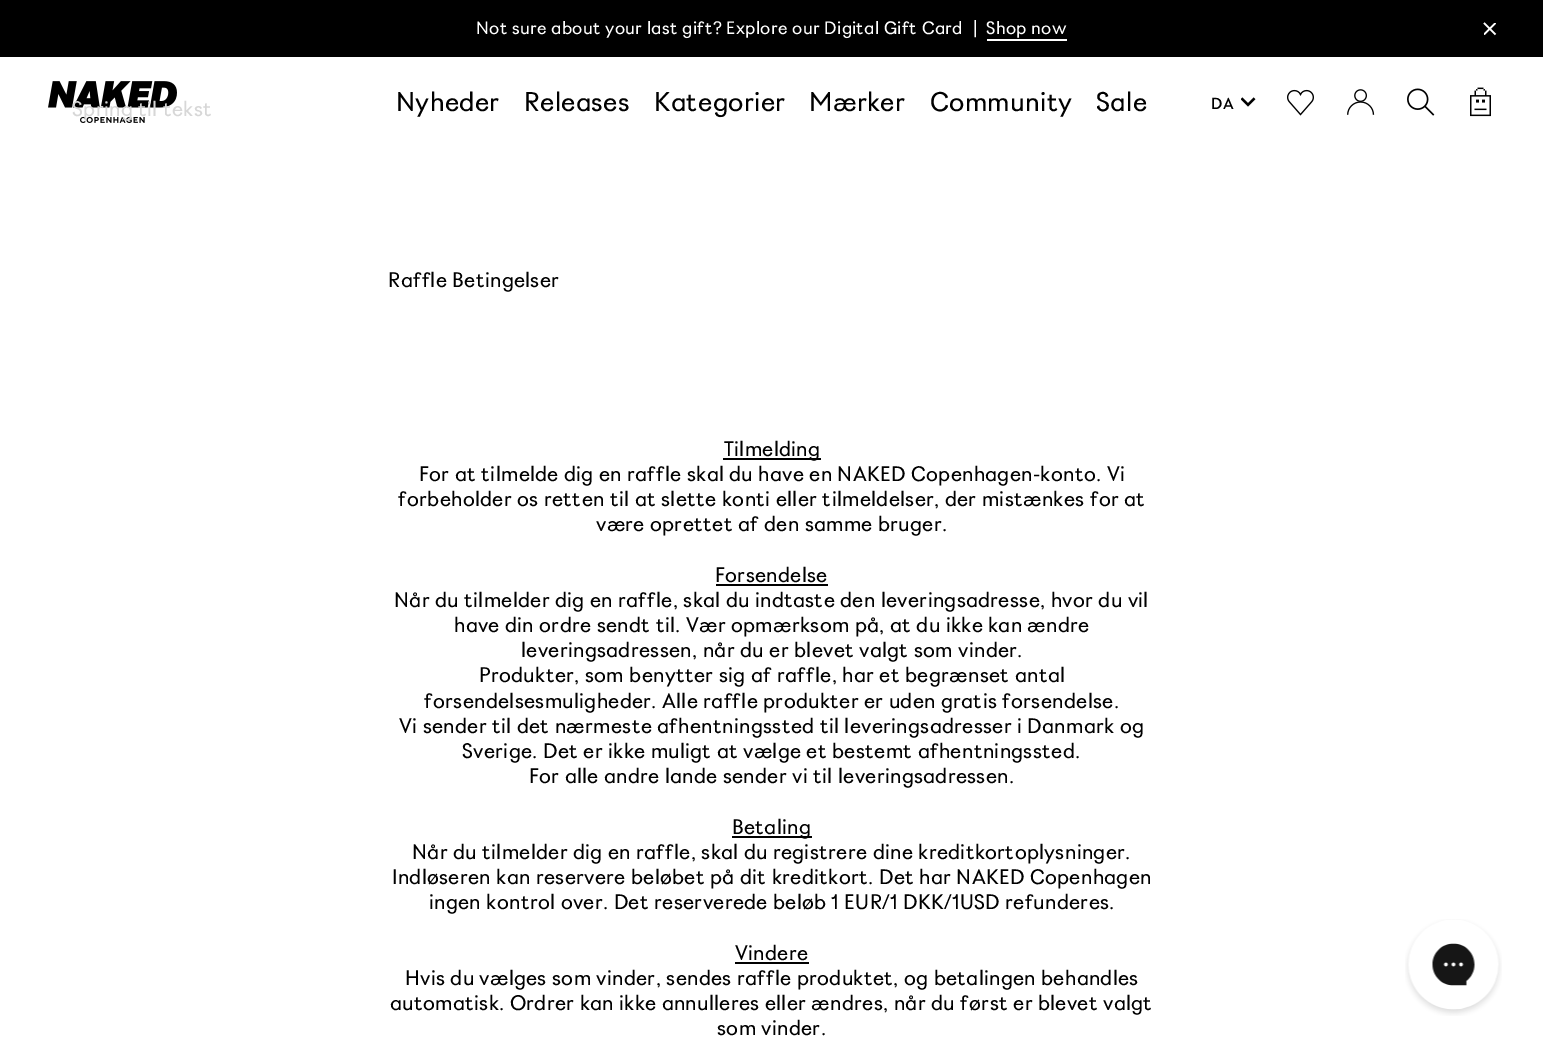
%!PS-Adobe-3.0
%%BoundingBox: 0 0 1543 1049
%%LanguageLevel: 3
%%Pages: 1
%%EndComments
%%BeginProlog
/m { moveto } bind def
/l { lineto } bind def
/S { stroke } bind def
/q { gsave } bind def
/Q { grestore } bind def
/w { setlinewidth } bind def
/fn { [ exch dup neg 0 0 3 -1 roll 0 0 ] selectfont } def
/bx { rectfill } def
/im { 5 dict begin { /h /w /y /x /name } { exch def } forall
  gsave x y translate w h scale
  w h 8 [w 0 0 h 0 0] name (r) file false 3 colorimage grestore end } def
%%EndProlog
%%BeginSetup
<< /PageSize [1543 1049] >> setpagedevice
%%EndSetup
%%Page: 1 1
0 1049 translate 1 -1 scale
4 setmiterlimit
1 setgray
0 0 1543 1049 bx
0 setgray
0 0 1543 57 bx
/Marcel-Regular 18 fn
1 setgray
476 34 m 0.3 0 (Not sure about your last gift? Explore our Digital Gift Card) ashow
973 34 m 0.3 0 (|) ashow
986 34 m 0.3 0 (Shop now) ashow
987 39 80 2 bx
q
1484 23 12 12 rectclip
1.5 w
1484 34.5 m 1495.5 23 l S
Q
1.5 w
1484 23 m 1495.5 34.5 l S
(image0.raw) 48 81 129 42 im
/Marcel-Regular 21 fn
0.843 setgray
72 116 m 0.3 0 (Spring til tekst) ashow
/Marcel-Regular 27 fn
0 setgray
396 111 m 0.3 0 (Nyheder) ashow
524 111 m 0.3 0 (Releases) ashow
654 111 m 0.3 0 (Kategorier) ashow
809 111 m 0.3 0 (Mærker) ashow
930 111 m 0.3 0 (Community) ashow
1096 111 m 0.3 0 (Sale) ashow
/Marcel-Medium 16 fn
1211 109 m 0.3 0 (DA) ashow
(image1.raw) 1241 97 15 10 im
(image2.raw) 1287 89 27 27 im
(image3.raw) 1347 89 28 26 im
(image4.raw) 1407 88 28 28 im
(image5.raw) 1470 87 21 30 im
/Marcel-Regular 21 fn
388 287 m 0.3 0 (Raffle Betingelser) ashow
723 458 98 2 bx
724 456 m 0.3 0 (Tilmelding) ashow
419 481 m 0.3 0 (For at tilmelde dig en raffle skal du have en NAKED Copenhagen-konto. Vi) ashow
398 506 m 0.3 0 (forbeholder os retten til at slette konti eller tilmeldelser, der mistænkes for at) ashow
596 531 m 0.3 0 (være oprettet af den samme bruger.) ashow
715 582 m 0.3 0 (Forsendelse) ashow
716 584 112 2 bx
394 607 m 0.3 0 (Når du tilmelder dig en raffle, skal du indtaste den leveringsadresse, hvor du vil) ashow
454 632 m 0.3 0 (have din ordre sendt til. Vær opmærksom på, at du ikke kan ændre) ashow
521 657 m 0.3 0 (leveringsadressen, når du er blevet valgt som vinder.) ashow
479 682 m 0.3 0 (Produkter, som benytter sig af raffle, har et begrænset antal) ashow
424 708 m 0.3 0 (forsendelsesmuligheder. Alle raffle produkter er uden gratis forsendelse.) ashow
399 733 m 0.3 0 (Vi sender til det nærmeste afhentningssted til leveringsadresser i Danmark og) ashow
462 758 m 0.3 0 (Sverige. Det er ikke muligt at vælge et bestemt afhentningssted.) ashow
529 783 m 0.3 0 (For alle andre lande sender vi til leveringsadressen.) ashow
732 836 80 2 bx
732 834 m 0.3 0 (Betaling) ashow
412 859 m 0.3 0 (Når du tilmelder dig en raffle, skal du registrere dine kreditkortoplysninger.) ashow
392 884 m 0.3 0 (Indløseren kan reservere beløbet på dit kreditkort. Det har NAKED Copenhagen) ashow
429 909 m 0.3 0 (ingen kontrol over. Det reserverede beløb 1 EUR/1 DKK/1USD refunderes.) ashow
735 960 m 0.3 0 (Vindere) ashow
735 962 74 2 bx
405 985 m 0.3 0 (Hvis du vælges som vinder, sendes raffle produktet, og betalingen behandles) ashow
390 1010 m 0.3 0 (automatisk. Ordrer kan ikke annulleres eller ændres, når du først er blevet valgt) ashow
717 1035 m 0.3 0 (som vinder.) ashow
(image6.raw) 1405 919 97 97 im
showpage
%%EOF
